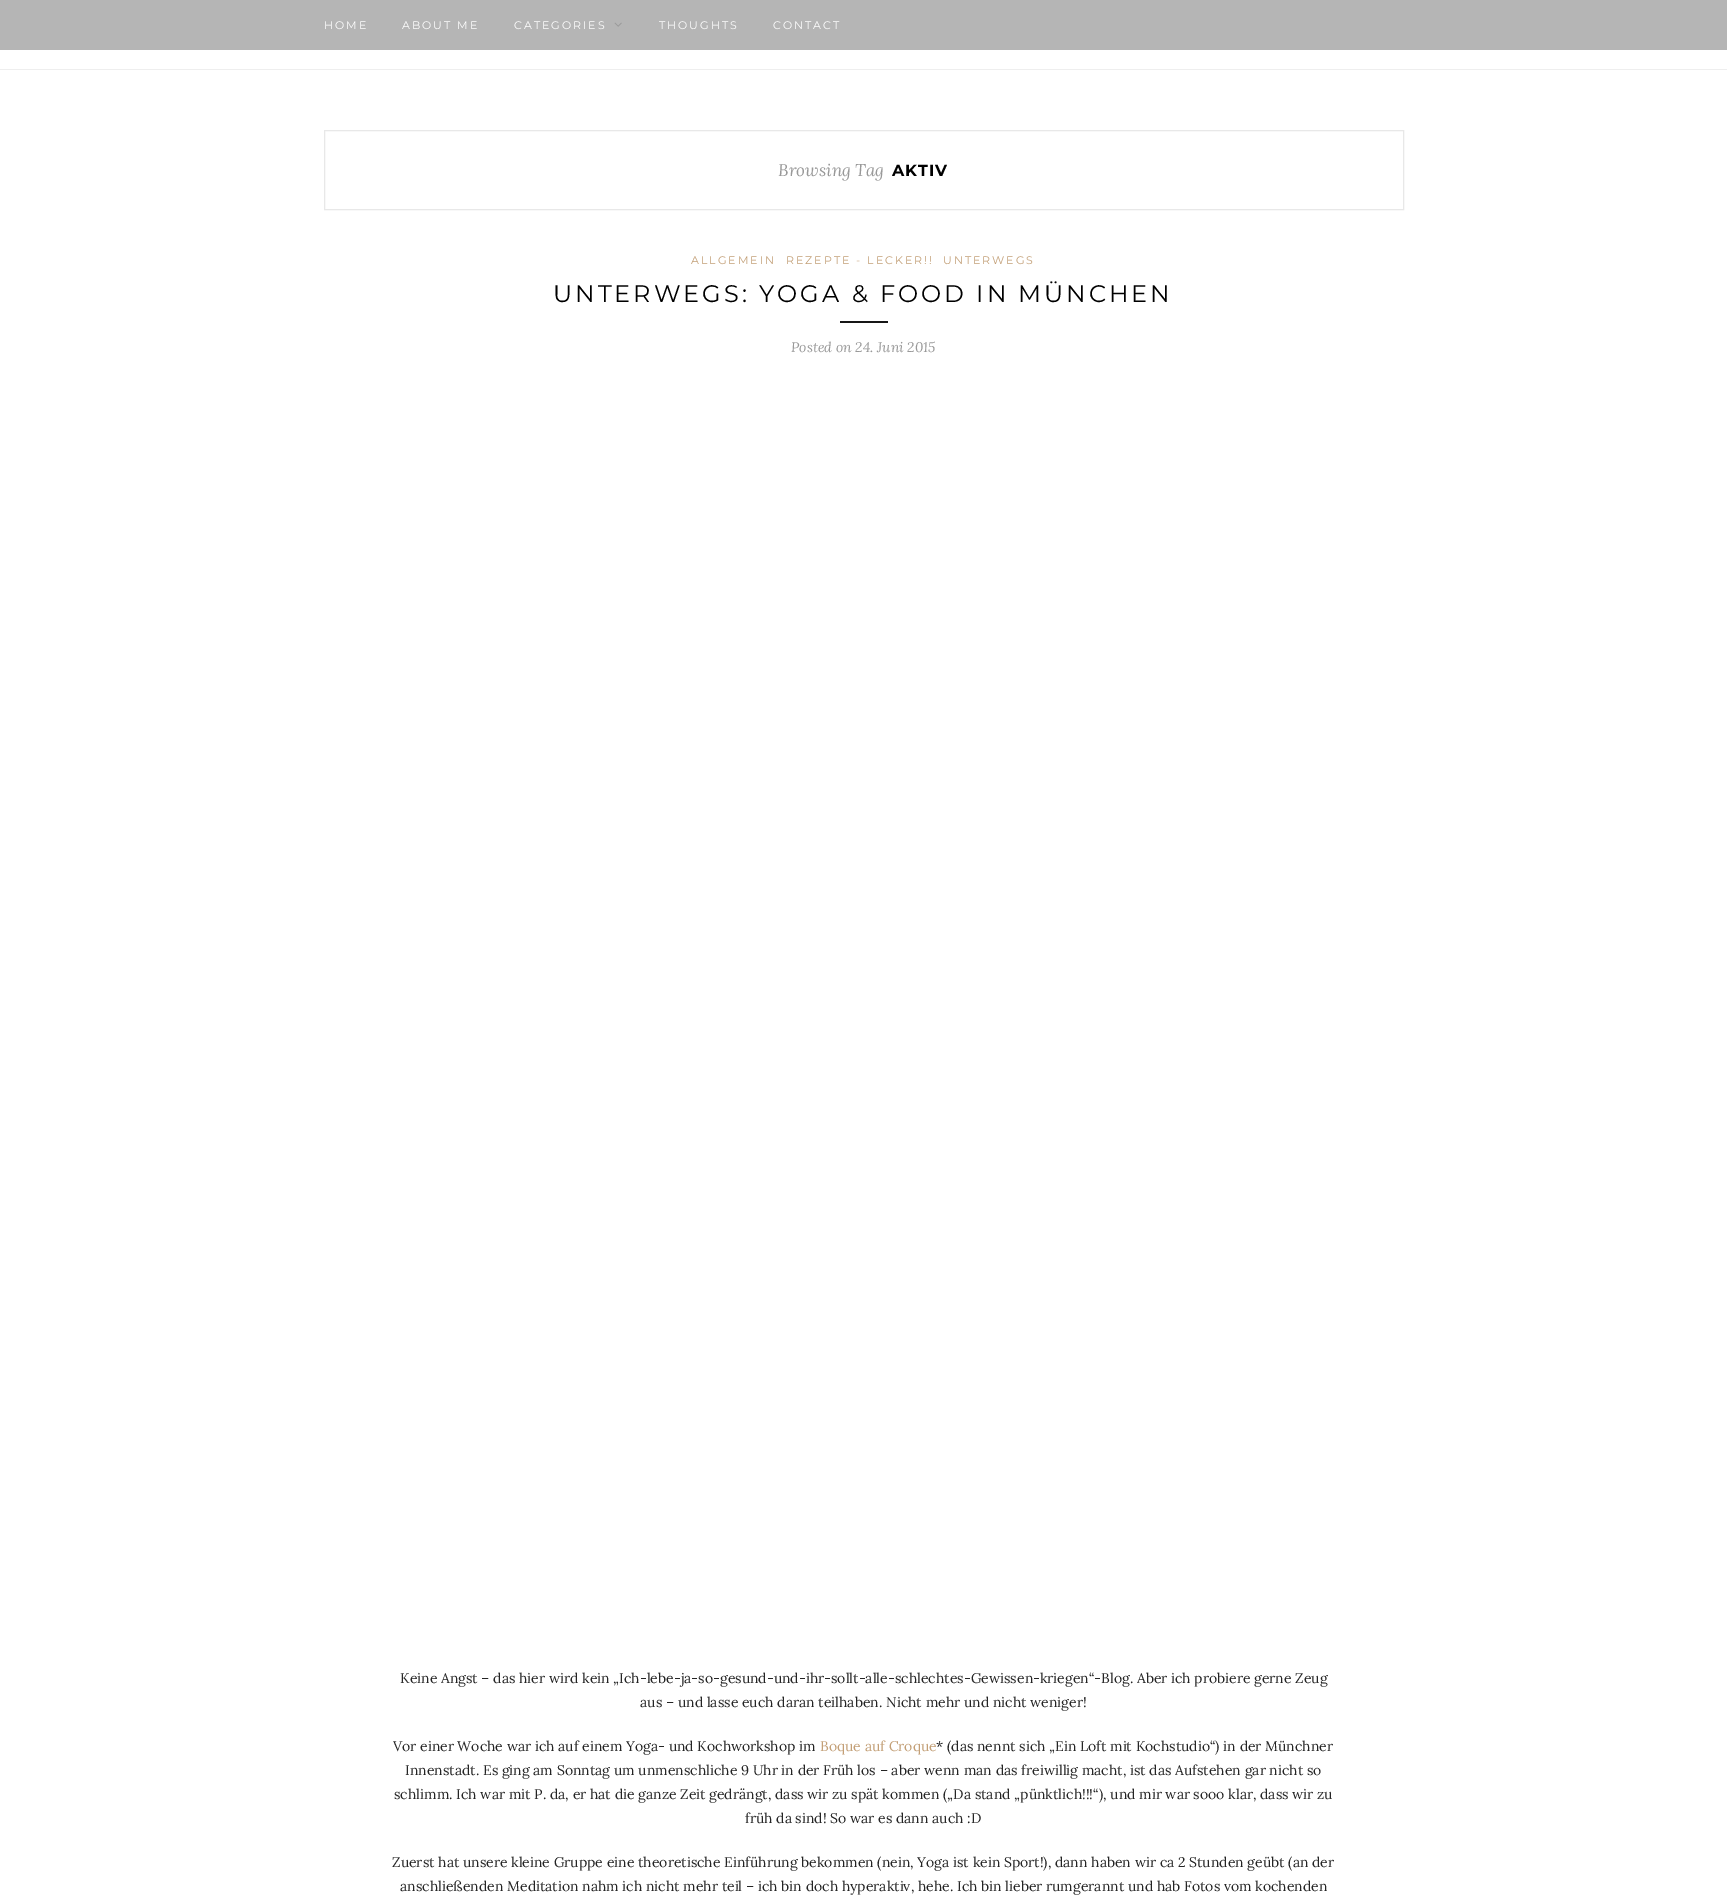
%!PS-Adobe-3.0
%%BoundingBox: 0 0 1727 1896
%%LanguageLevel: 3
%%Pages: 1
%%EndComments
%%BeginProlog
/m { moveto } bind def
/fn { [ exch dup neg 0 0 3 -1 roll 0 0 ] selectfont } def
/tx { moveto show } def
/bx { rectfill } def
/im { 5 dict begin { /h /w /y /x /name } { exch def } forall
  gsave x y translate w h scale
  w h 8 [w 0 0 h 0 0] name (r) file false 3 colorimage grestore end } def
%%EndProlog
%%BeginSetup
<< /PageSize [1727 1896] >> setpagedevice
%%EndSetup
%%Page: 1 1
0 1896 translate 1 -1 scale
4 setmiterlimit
1 setgray
0 0 1727 1896 bx
0.71 setgray
0 0 1727 50 bx
/Montserrat-Regular 11 fn
1 setgray
324 29 m 2 0 (HOME) ashow
402 29 m 2 0 (ABOUT ME) ashow
514 29 m 2 0 (CATEGORIES) ashow
(image0.raw) 614 22 8 5 im
659 29 m 2 0 (THOUGHTS) ashow
773 29 m 2 0 (CONTACT) ashow
0.933 setgray
0 69 1727 1 bx
0.91 setgray
324.5 130.5 1079 79 rectstroke
/Lora-Italic 17 fn
0.6 setgray
(Browsing Tag) 778 176 tx
/Montserrat-Bold 16 fn
0 setgray
892 176 m 1 0 (AKTIV) ashow
/Montserrat-Regular 11 fn
0.765 0.624 0.463 setrgbcolor
691 264 m 2 0 (ALLGEMEIN) ashow
786 264 m 2 0 (REZEPTE - LECKER!!) ashow
943 264 m 2 0 (UNTERWEGS) ashow
/Montserrat-Regular 24 fn
0 setgray
553 302 m 3 0 (UNTERWEGS: YOGA & FOOD IN MÜNCHEN) ashow
0.086 setgray
840 321 48 2 bx
/Lora-Italic 14 fn
0.6 setgray
(Posted on 24. Juni 2015) 791 352 tx
/Lora-Regular 14 fn
0.141 setgray
(Keine Angst – das hier wird kein „Ich-lebe-ja-so-gesund-und-ihr-sollt-alle-schlechtes-Gewissen-kriegen“-Blog. Aber ich probiere gerne Zeug) 400 1683 tx
(aus – und lasse euch daran teilhaben. Nicht mehr und nicht weniger!) 640 1707 tx
(Vor einer Woche war ich auf einem Yoga- und Kochworkshop im) 393 1751 tx
0.765 0.624 0.463 setrgbcolor
(Boque auf Croque) 820 1751 tx
0.141 setgray
(* \(das nennt sich „Ein Loft mit Kochstudio“\) in der Münchner) 936 1751 tx
(Innenstadt. Es ging am Sonntag um unmenschliche 9 Uhr in der Früh los – aber wenn man das freiwillig macht, ist das Aufstehen gar nicht so) 405 1775 tx
(schlimm. Ich war mit P. da, er hat die ganze Zeit gedrängt, dass wir zu spät kommen \(„Da stand „pünktlich!!!“\), und mir war sooo klar, dass wir zu) 394 1799 tx
(früh da sind! So war es dann auch :D) 745 1823 tx
(Zuerst hat unsere kleine Gruppe eine theoretische Einführung bekommen \(nein, Yoga ist kein Sport!\), dann haben wir ca 2 Stunden geübt \(an der) 392 1867 tx
(anschließenden Meditation nahm ich nicht mehr teil – ich bin doch hyperaktiv, hehe. Ich bin lieber rumgerannt und hab Fotos vom kochenden) 400 1891 tx
showpage
%%EOF
